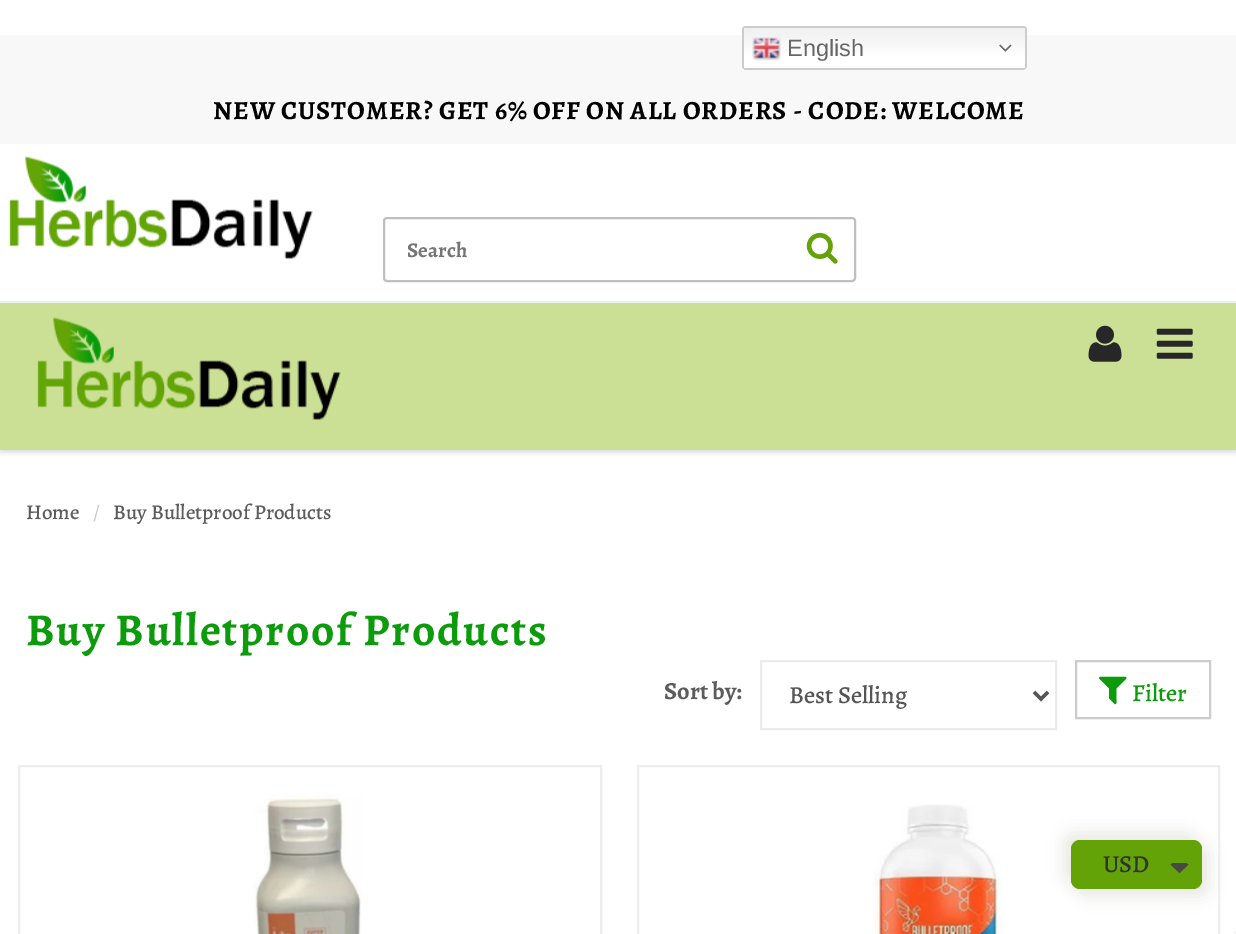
%!PS-Adobe-3.0
%%BoundingBox: 0 0 1236 934
%%LanguageLevel: 3
%%Pages: 1
%%EndComments
%%BeginProlog
/m { moveto } bind def
/l { lineto } bind def
/c { curveto } bind def
/h { closepath } bind def
/f { fill } bind def
/S { stroke } bind def
/q { gsave } bind def
/Q { grestore } bind def
/w { setlinewidth } bind def
/fn { [ exch dup neg 0 0 3 -1 roll 0 0 ] selectfont } def
/tx { moveto show } def
/bx { rectfill } def
/al { dup .setfillconstantalpha .setstrokeconstantalpha } def
/rr { 5 dict begin { /r /h /w /y /x } { exch def } forall
  x r add y moveto x w add y 2 copy h add r arct x w add y h add x 1 index r arct
  x y h add x y r arct x y 2 copy exch w add exch r arct closepath end } def
/sh { 12 dict begin { /a /b /q /h /w /y /x } { exch def } forall gsave /was 0 def
  9 -2 -9 { dup b mul 4 div /e exch def 1 sub .425 mul 2.718 exch exp 1 add a .99 .min exch div /now exch def
    1 1 now sub 1 was sub div sub al /was now def
    w h .min e 2 mul add 0 gt { x e sub y e sub w e 2 mul add h e 2 mul add
      q e add b .6 mul add w h .min 2 div e add .min 0 .max rr fill } if } for grestore end } def
/im { 5 dict begin { /h /w /y /x /name } { exch def } forall
  gsave x y translate w h scale
  w h 8 [w 0 0 h 0 0] name (r) file false 3 colorimage grestore end } def
%%EndProlog
%%BeginSetup
<< /PageSize [1236 934] /PageUsesTransparency true >> setpagedevice
%%EndSetup
%%Page: 1 1
0 .pushpdf14devicefilter
0 934 translate 1 -1 scale
4 setmiterlimit
1 setgray
0 0 1236 934 bx
0.973 setgray
0 35 1236 109 bx
q 742 26 285 44 4 rr clip newpath
<< /ShadingType 2 /ColorSpace /DeviceRGB /Coords [885 26 885 70] /Extend [true true] /Function << /FunctionType 3 /Domain [0 1] /Functions [<< /FunctionType 2 /Domain [0 1] /C0 [0.937 0.937 0.937] /C1 [1 1 1] /N 1 >> << /FunctionType 2 /Domain [0 1] /C0 [1 1 1] /C1 [1 1 1] /N 1 >>] /Bounds [0.7] /Encode [0 1 0 1] >> >> shfill Q
0.8 setgray
746 26 m 744 26 742 28 742 30 c 742 66 l 742 68 744 70 746 70 c 1023 70 l 1025 70 1027 68 1027 66 c 1027 30 l 1027 28 1025 26 1023 26 c h 744 28 m 744 68 l 1025 68 l 1025 28 l h eofill
(image0.raw) 752 37 29 24 im
/LiberationSans-Regular 23.5 fn
0.4 setgray
(English) 787 56 tx
(image1.raw) 999 44 13 8 im
/Alegreya-Bold 26.25 fn
0 setgray
213 119 m 0.88 0 (NEW CUSTOMER? GET 6% OFF ON ALL ORDERS - CODE: WELCOME) ashow
(image2.raw) 8 155 305 104 im
0.749 setgray
2 w
384 218 471 63 3 rr S
q
408 236 378 28 rectclip
/Alegreya-Bold 21 fn
0.459 setgray
(Search) 407 257 tx
Q
(image3.raw) 806 232 32 32 im
0.043 0.098 0.11 setrgbcolor
0 305 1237 148 0 2 0.12 sh
0.8 0.878 0.584 setrgbcolor
0 303 1236 147 bx
0.925 0.937 0.937 setrgbcolor
0 301 1236 2 bx
(image4.raw) 37 317 304 103 im
(image5.raw) 1088 325 34 37 im
(image6.raw) 1156 328 37 31 im
/Alegreya-Medium 21 fn
0.361 setgray
(Home) 26 519 tx
0.8 setgray
(/) 93 519 tx
0.361 setgray
(Buy Bulletproof Products) 113 519 tx
/Alegreya-Bold 45.5 fn
0.047 0.608 0.043 setrgbcolor
26 645 m 1.75 0 (Buy Bulletproof Products) ashow
/Alegreya-Bold 24.5 fn
0.361 setgray
(Sort by:) 664 699 tx
0.922 setgray
761 661 295 68 rectstroke
0.333 setgray
3.5 w
1034 692 m 1041 699 l 1048 692 l S
/Alegreya-Medium 24.5 fn
(Best Selling) 789 703 tx
0.8 setgray
2 w
1076 661 134 57 rectstroke
(image7.raw) 1099 676 28 29 im
0.047 0.608 0.043 setrgbcolor
(Filter) 1132 701 tx
0.933 setgray
19 766 582 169 rectstroke
(image8.raw) 253 794 109 140 im
638 766 581 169 rectstroke
(image9.raw) 873 804 130 130 im
0.91 0.91 0.886 setrgbcolor
1064 833 131 49 9 8 1 sh
1078 847 131 49 9 8 1 sh
0.388 0.639 0.031 setrgbcolor
1071 840 131 49 9 rr f
0.2 setgray
(USD) 1103 872 tx
0.278 0.286 0.259 setrgbcolor
1174 863 m 1185 863 l 1186 863 1187.5 863.5 1188.5 864.5 c 1179.5 873 l 1170.5 864.5 l 1171.5 863.5 1173 863 1174 863 c h f
0.961 setgray
1234 931 2 3 bx
.poppdf14devicefilter showpage
%%EOF
